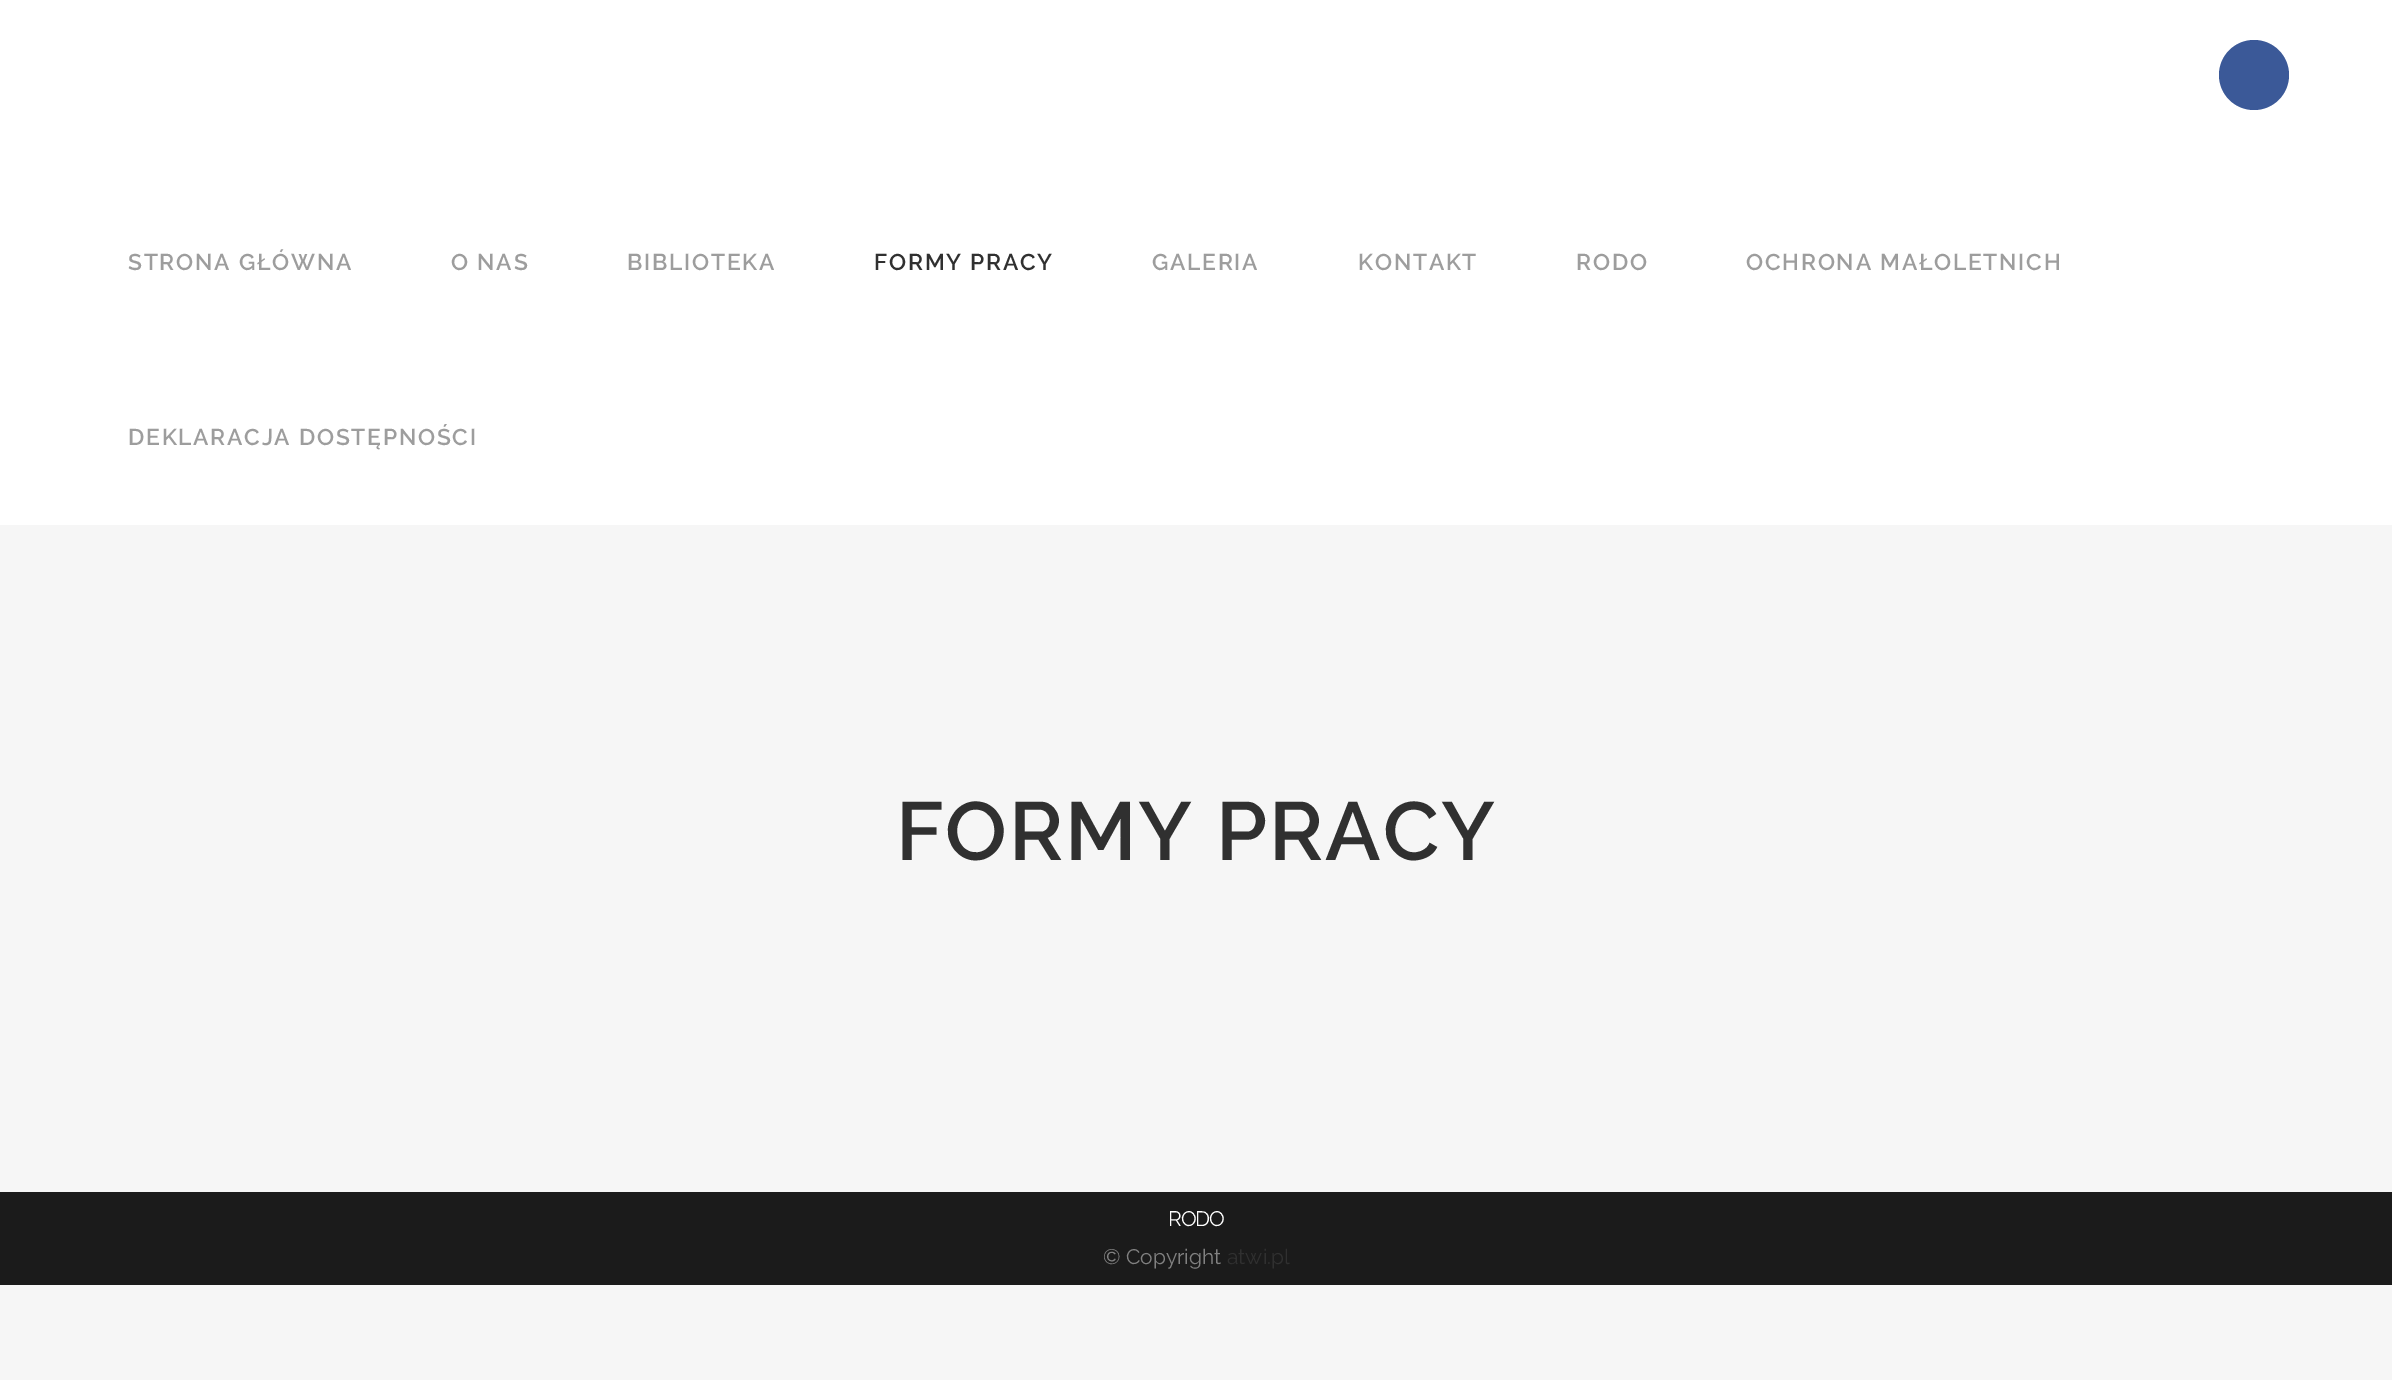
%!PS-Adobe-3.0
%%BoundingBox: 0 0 2392 1380
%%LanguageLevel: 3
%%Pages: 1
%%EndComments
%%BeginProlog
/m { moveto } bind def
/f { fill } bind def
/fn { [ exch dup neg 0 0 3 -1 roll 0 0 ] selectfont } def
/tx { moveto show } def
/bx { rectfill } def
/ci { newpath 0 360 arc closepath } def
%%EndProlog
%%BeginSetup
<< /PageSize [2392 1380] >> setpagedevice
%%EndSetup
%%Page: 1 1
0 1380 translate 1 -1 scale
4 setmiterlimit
0.965 setgray
0 0 2392 1380 bx
1 setgray
0 0 2392 525 bx
0.231 0.349 0.596 setrgbcolor
2254 75 35 ci f
/Raleway-SemiBold 22.75 fn
0.616 setgray
128 270 m 1.75 0 (STRONA GŁÓWNA) ashow
451 270 m 1.75 0 (O NAS) ashow
627 270 m 1.75 0 (BIBLIOTEKA) ashow
0.188 setgray
874 270 m 1.75 0 (FORMY PRACY) ashow
0.616 setgray
1152 270 m 1.75 0 (GALERIA) ashow
1358 270 m 1.75 0 (KONTAKT) ashow
1576 270 m 1.75 0 (RODO) ashow
1746 270 m 1.75 0 (OCHRONA MAŁOLETNICH) ashow
128 445 m 1.75 0 (DEKLARACJA DOSTĘPNOŚCI) ashow
/Raleway-SemiBold 82.25 fn
0.188 setgray
896 860 m 1.75 0 (FORMY PRACY) ashow
0.106 setgray
0 1192 2392 93 bx
/Raleway-Regular 21 fn
1 setgray
1168 1226 m -1 0 (RODO) ashow
0.506 setgray
(© Copyright) 1103 1264 tx
0.188 setgray
(atwi.pl) 1227 1264 tx
showpage
%%EOF
